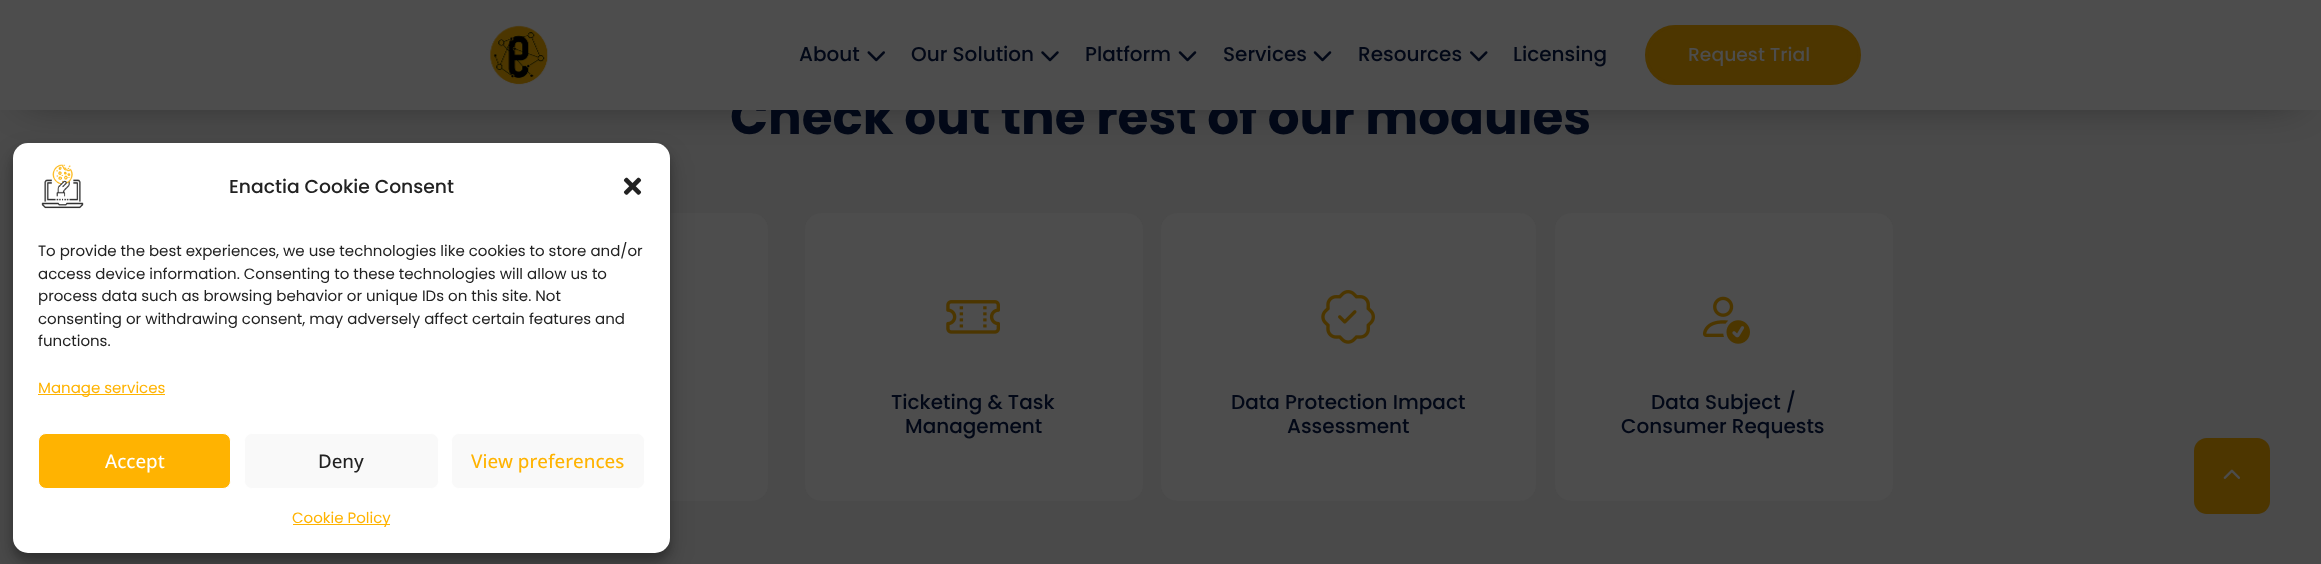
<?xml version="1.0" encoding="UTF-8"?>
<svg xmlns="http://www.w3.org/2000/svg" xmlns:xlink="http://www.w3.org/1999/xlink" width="2321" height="564">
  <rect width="100%" height="100%" fill="#4a4a4a" />
  <rect x="26" y="40" width="2269" height="58" fill="#000000" fill-opacity="0.5" filter="blur(20px)" />
  <rect x="430" y="213" width="338" height="288" rx="16" fill="#4d4d4d" />
  <rect x="13" y="150" width="657" height="410" rx="15" fill="#000000" fill-opacity="0.23" filter="blur(4px)" />
  <rect x="13" y="155" width="657" height="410" rx="15" fill="#000000" fill-opacity="0.19" filter="blur(12.5px)" />
  <rect x="13" y="143" width="657" height="410" rx="15" fill="#ffffff" />
  <image x="41" y="164" width="43" height="45" xlink:href="image6.png" />
  <image x="623" y="177" width="19" height="18" xlink:href="image7.png" />
  <rect x="38" y="394" width="127" height="1" fill="#ffb301" />
  <rect x="38.5" y="433.5" width="192" height="55" rx="7.5" fill="#ffb301" stroke="#ffffff" />
  <rect x="244.5" y="433.5" width="194" height="55" rx="7.5" fill="#f9f9f9" stroke="#ffffff" />
  <rect x="451.5" y="433.5" width="193" height="55" rx="7.5" fill="#f9f9f9" stroke="#ffffff" />
  <rect x="293" y="524" width="97" height="1" fill="#ffb301" />
  <rect x="805" y="213" width="338" height="288" rx="16" fill="#4d4d4d" />
  <image x="946" y="300" width="54" height="34" xlink:href="image8.png" />
  <rect x="1161" y="213" width="375" height="288" rx="16" fill="#4d4d4d" />
  <image x="1321" y="290" width="54" height="54" xlink:href="image9.png" />
  <rect x="1555" y="213" width="338" height="288" rx="16" fill="#4d4d4d" />
  <image x="1703" y="296" width="47" height="48" xlink:href="image10.png" />
  <rect x="2194" y="438" width="76" height="76" rx="13" fill="#4d3600" />
  <image x="2223" y="469" width="18" height="10" xlink:href="image11.png" />
  <text x="229" y="193" style="font-family: Poppins; font-size: 18.75px; font-weight: 500; fill: #222222">Enactia Cookie Consent</text>
  <text x="38" y="256" style="font-family: Poppins; font-size: 15px; fill: #222222">To provide the best experiences, we use technologies like cookies to store and/or</text>
  <text x="38" y="279" style="font-family: Poppins; font-size: 15px; fill: #222222">access device information. Consenting to these technologies will allow us to</text>
  <text x="38" y="301" style="font-family: Poppins; font-size: 15px; fill: #222222">process data such as browsing behavior or unique IDs on this site. Not</text>
  <text x="38" y="324" style="font-family: Poppins; font-size: 15px; fill: #222222">consenting or withdrawing consent, may adversely affect certain features and</text>
  <text x="38" y="346" style="font-family: Poppins; font-size: 15px; fill: #222222">functions.</text>
  <text x="38" y="393" style="font-family: Poppins; font-size: 15px; fill: #ffb301">Manage services</text>
  <text x="105" y="468" style="font-family: Open Sans; font-size: 18.75px; font-weight: 500; fill: #ffffff">Accept</text>
  <text x="318" y="468" style="font-family: Open Sans; font-size: 18.75px; font-weight: 500; fill: #222222">Deny</text>
  <text x="471" y="468" style="font-family: Open Sans; font-size: 18.75px; font-weight: 500; fill: #ffb301">View preferences</text>
  <text x="292" y="523" style="font-family: Poppins; font-size: 15px; fill: #ffb301">Cookie Policy</text>
  <text x="730" y="134" style="font-family: Poppins; font-size: 50px; font-weight: bold; fill: #020817">Check out the rest of our modules</text>
  <rect width="2321" height="110" fill="#4d4d4d" />
  <rect x="1646.5" y="26.5" width="213" height="57" rx="28.5" fill="#4d3600" stroke="#4d3600" stroke-width="3" />
  <text x="1688" y="61" style="font-family: Poppins; font-size: 18.75px; font-weight: 500; fill: #4d4d4d">Request Trial</text>
  <text x="1513" y="61" style="font-family: Poppins; font-size: 20px; font-weight: 500; fill: #020817">Licensing</text>
  <image x="1470" y="51" width="18" height="11" xlink:href="image5.png" />
  <text x="1358" y="61" style="font-family: Poppins; font-size: 20px; font-weight: 500; fill: #020817">Resources</text>
  <image x="1313" y="51" width="19" height="11" xlink:href="image4.png" />
  <text x="1223" y="61" style="font-family: Poppins; font-size: 20px; font-weight: 500; fill: #020817">Services</text>
  <image x="1178" y="51" width="19" height="11" xlink:href="image4.png" />
  <text x="1085" y="61" style="font-family: Poppins; font-size: 20px; font-weight: 500; fill: #020817">Platform</text>
  <image x="1041" y="51" width="18" height="11" xlink:href="image3.png" />
  <text x="911" y="61" style="font-family: Poppins; font-size: 20px; font-weight: 500; fill: #020817">Our Solution</text>
  <image x="867" y="51" width="18" height="11" xlink:href="image2.png" />
  <text x="799" y="61" style="font-family: Poppins; font-size: 20px; font-weight: 500; fill: #020817">About</text>
  <image x="490" y="25" width="58" height="60" xlink:href="image1.png" />
  <text x="891" y="409" style="font-family: Poppins; font-size: 20px; font-weight: 500; fill: #020817">Ticketing &amp; Task</text>
  <text x="905" y="433" style="font-family: Poppins; font-size: 20px; font-weight: 500; fill: #020817">Management</text>
  <text x="1231" y="409" style="font-family: Poppins; font-size: 20px; font-weight: 500; fill: #020817">Data Protection Impact</text>
  <text x="1287" y="433" style="font-family: Poppins; font-size: 20px; font-weight: 500; fill: #020817">Assessment</text>
  <text x="1651" y="409" style="font-family: Poppins; font-size: 20px; font-weight: 500; fill: #020817">Data Subject /</text>
  <text x="1621" y="433" style="font-family: Poppins; font-size: 20px; font-weight: 500; fill: #020817">Consumer Requests</text>
</svg>
